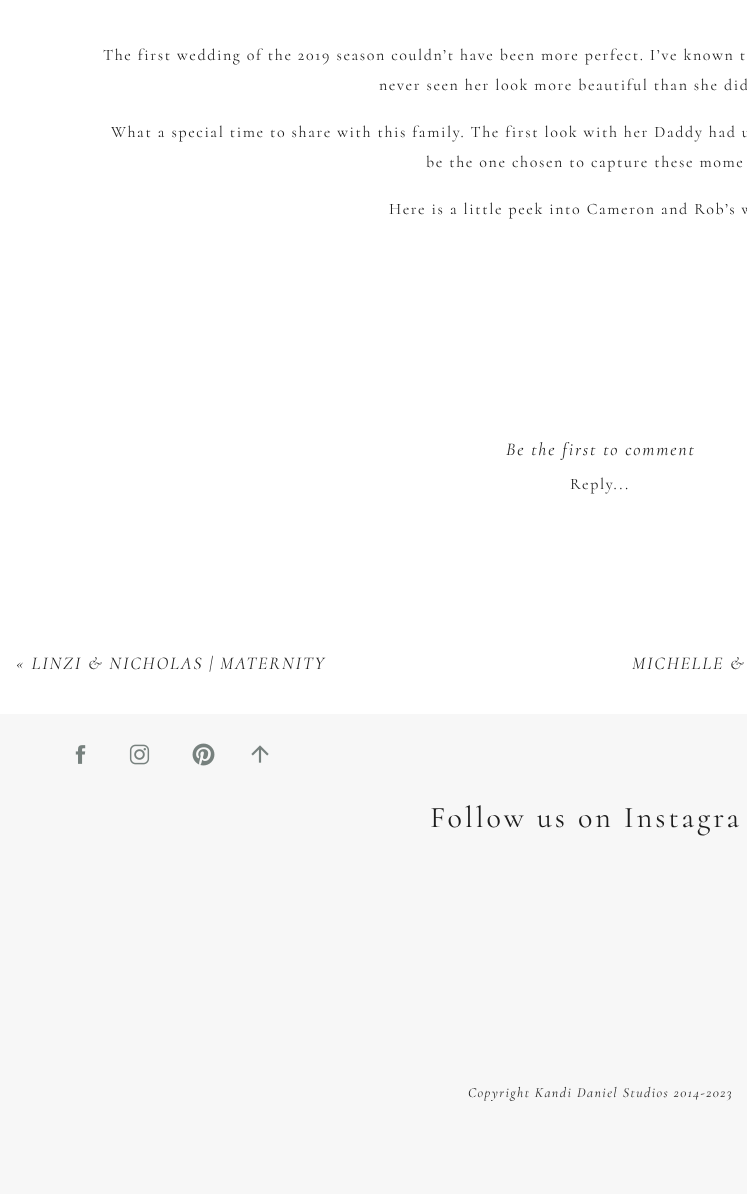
<?xml version="1.0" encoding="UTF-8"?>
<svg xmlns="http://www.w3.org/2000/svg" xmlns:xlink="http://www.w3.org/1999/xlink" width="747" height="1194">
  <rect width="100%" height="100%" fill="#ffffff" />
  <rect y="714" width="747" height="480" fill="#f7f7f7" />
  <image x="75" y="745" width="11" height="19" xlink:href="image1.png" />
  <image x="129" y="744" width="21" height="21" xlink:href="image2.png" />
  <image x="192" y="743" width="23" height="23" xlink:href="image3.png" />
  <image x="251" y="745" width="18" height="18" xlink:href="image4.png" />
  <text x="103" y="60" style="font-family: Cormorant; font-size: 16px; font-weight: 300; letter-spacing: 1.6px; fill: #1c1c1c">The first wedding of the 2019 season couldn’t have been more perfect. I’ve known t</text>
  <text x="379" y="90" style="font-family: Cormorant; font-size: 16px; font-weight: 300; letter-spacing: 1.6px; fill: #1c1c1c">never seen her look more beautiful than she did</text>
  <text x="111" y="137" style="font-family: Cormorant; font-size: 16px; font-weight: 300; letter-spacing: 1.6px; fill: #1c1c1c">What a special time to share with this family. The first look with her Daddy had u</text>
  <text x="426" y="167" style="font-family: Cormorant; font-size: 16px; font-weight: 300; letter-spacing: 1.6px; fill: #1c1c1c">be the one chosen to capture these mome</text>
  <text x="389" y="214" style="font-family: Cormorant; font-size: 16px; font-weight: 300; letter-spacing: 1.6px; fill: #1c1c1c">Here is a little peek into Cameron and Rob’s w</text>
  <text x="506" y="455" style="font-family: Cormorant; font-size: 18px; font-weight: 300; font-style: italic; letter-spacing: 1.8px; fill: #1c1c1c">Be the first to comment</text>
  <text x="570" y="489" style="font-family: Cormorant; font-size: 16px; font-weight: 300; letter-spacing: 1.6px; fill: #1c1c1c">Reply...</text>
  <text x="16" y="669" style="font-family: Cormorant; font-size: 18px; font-weight: 300; font-style: italic; letter-spacing: 1.8px; fill: #1c1c1c">« LINZI &amp; NICHOLAS | MATERNITY</text>
  <text x="632" y="669" style="font-family: Cormorant; font-size: 18px; font-weight: 300; font-style: italic; letter-spacing: 1.8px; fill: #1c1c1c">MICHELLE &amp;</text>
  <text x="430" y="827" style="font-family: Cormorant; font-size: 30px; font-weight: 300; letter-spacing: 3px; fill: #1c1c1c">Follow us on Instagra</text>
  <text x="468" y="1097" style="font-family: Cormorant; font-size: 14px; font-weight: 300; font-style: italic; letter-spacing: 1.4px; fill: #1c1c1c">Copyright Kandi Daniel Studios 2014-2023</text>
</svg>
